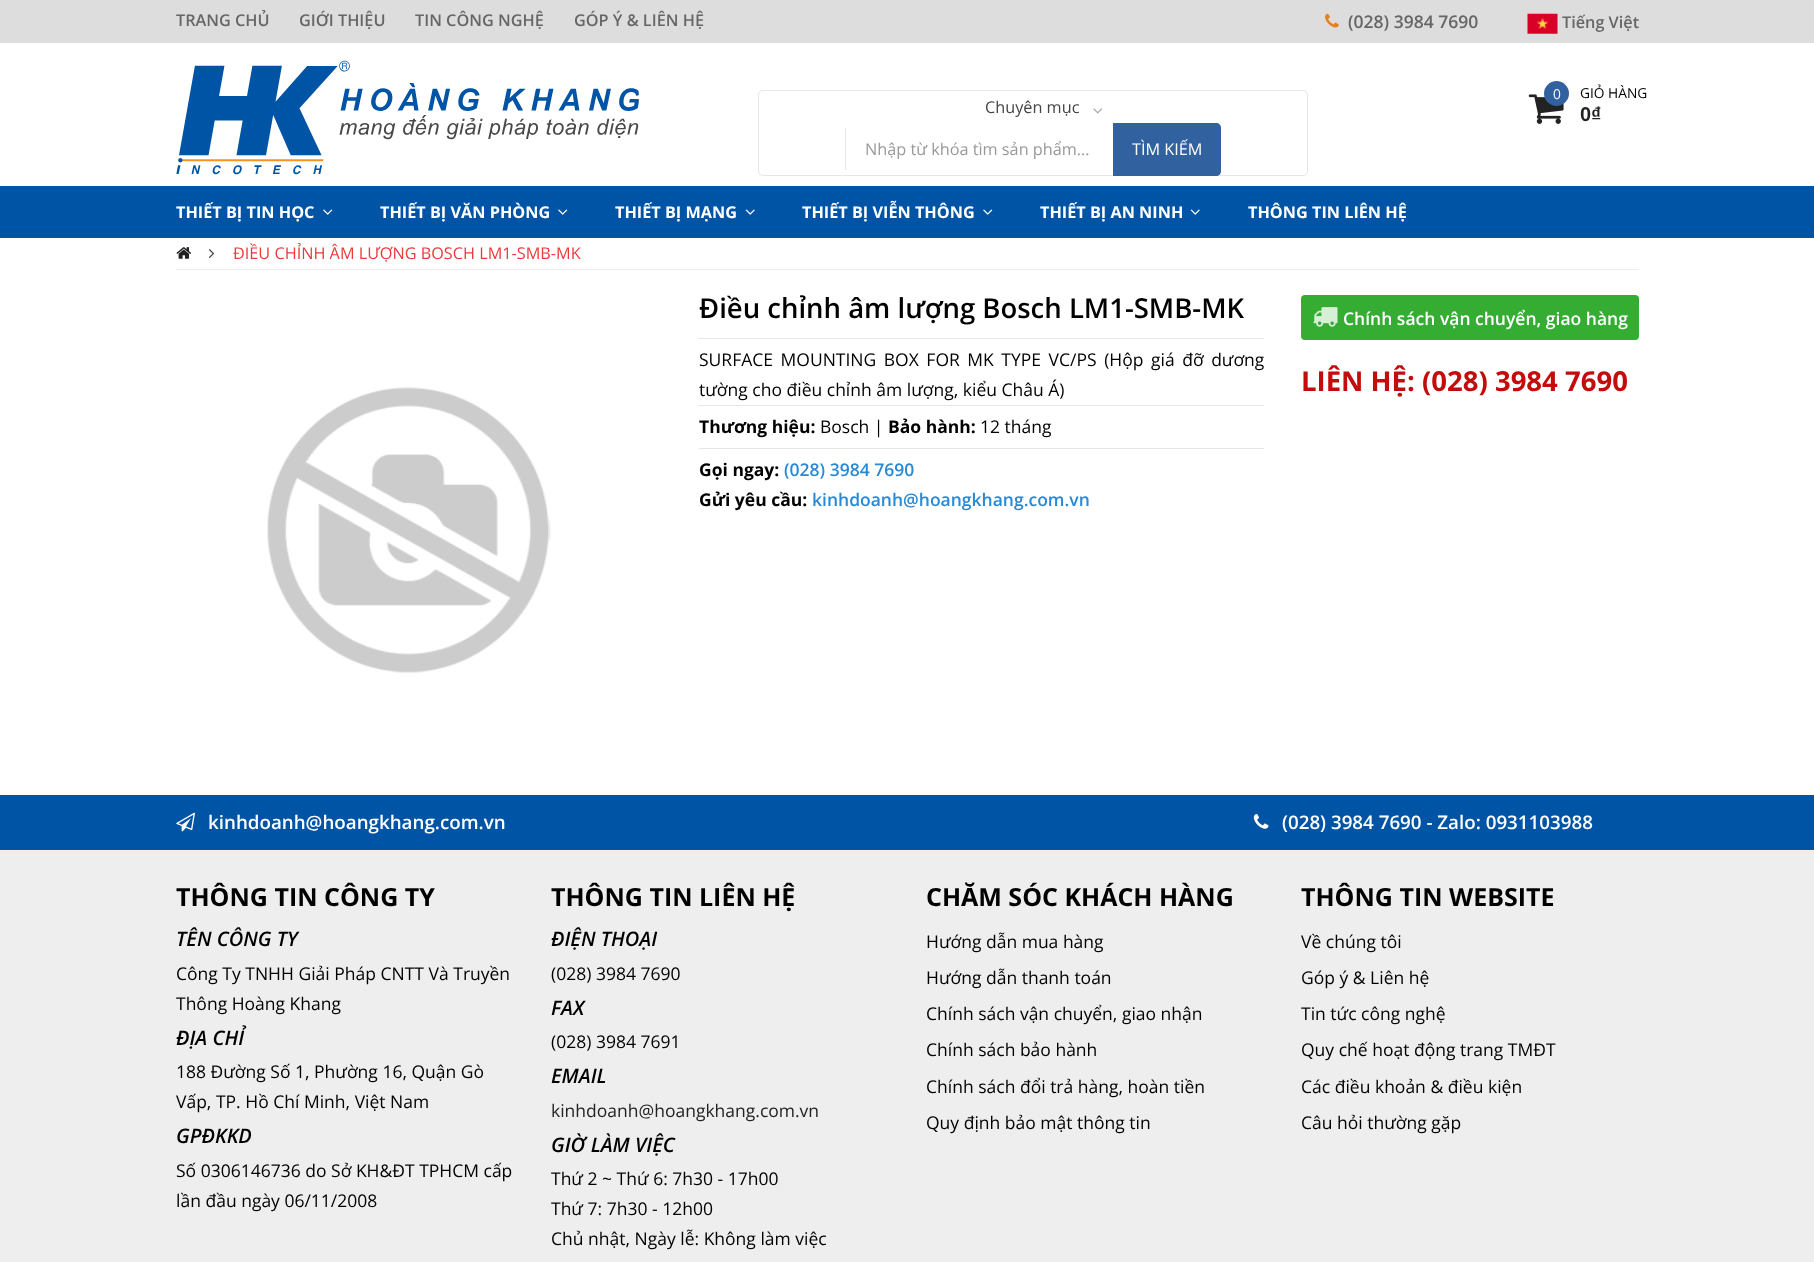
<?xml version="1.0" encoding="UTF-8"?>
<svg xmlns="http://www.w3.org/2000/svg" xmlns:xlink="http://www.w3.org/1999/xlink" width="1814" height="1262">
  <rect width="100%" height="100%" fill="#ffffff" />
  <rect width="1814" height="43" fill="#dddddd" />
  <image x="1325" y="13" width="14" height="15" xlink:href="image1.png" />
  <image x="1527" y="13" width="31" height="21" xlink:href="image2.png" />
  <image x="176" y="60" width="463" height="115" xlink:href="image3.png" />
  <rect x="758.5" y="90.5" width="549" height="85" rx="4.5" fill="none" stroke="#e6e6e6" />
  <image x="1093" y="108" width="10" height="6" xlink:href="image4.png" />
  <rect x="845" y="128" width="1" height="42" fill="#e6e6e6" />
  <path d="M 1113 123 h 103 c 3 0 5 2 5 5 v 43 c 0 3 -2 5 -5 5 h -103 z" fill="#31629f" />
  <image x="1528" y="94" width="36" height="30" xlink:href="image5.png" />
  <circle cx="1556.5" cy="93.5" r="12.5" fill="#31629f" />
  <rect y="186" width="1814" height="52" fill="#0054a5" />
  <image x="323" y="209" width="10" height="6" xlink:href="image6.png" />
  <image x="558" y="209" width="10" height="6" xlink:href="image6.png" />
  <image x="745" y="209" width="10" height="6" xlink:href="image7.png" />
  <image x="983" y="209" width="10" height="6" xlink:href="image6.png" />
  <image x="1190" y="209" width="10" height="6" xlink:href="image7.png" />
  <rect x="176" y="269" width="1463" height="1" fill="#eeeeee" />
  <image x="176" y="247" width="15" height="12" xlink:href="image8.png" />
  <image x="208" y="249" width="7" height="9" xlink:href="image9.png" />
  <rect x="699" y="338" width="565" height="1" fill="#e6e6e6" />
  <rect x="699" y="405" width="565" height="1" fill="#e6e6e6" />
  <rect x="699" y="448" width="565" height="1" fill="#e6e6e6" />
  <rect x="1301" y="295" width="338" height="45" rx="4" fill="#35ad33" />
  <image x="1313" y="307" width="25" height="20" xlink:href="image10.png" />
  <image x="267" y="387" width="284" height="286" xlink:href="image11.png" />
  <rect y="795" width="1814" height="55" fill="#0054a5" />
  <image x="176" y="812" width="19" height="20" xlink:href="image12.png" />
  <image x="1253" y="814" width="16" height="15" xlink:href="image13.png" />
  <rect y="850" width="1814" height="412" fill="#eeeeee" />
  <text x="176" y="26" style="font-family: Open Sans; font-size: 16.25px; font-weight: 600; fill: #666666">TRANG CHỦ</text>
  <text x="299" y="26" style="font-family: Open Sans; font-size: 16.25px; font-weight: 600; fill: #666666">GIỚI THIỆU</text>
  <text x="415" y="26" style="font-family: Open Sans; font-size: 16.25px; font-weight: 600; fill: #666666">TIN CÔNG NGHỆ</text>
  <text x="574" y="26" style="font-family: Open Sans; font-size: 16.25px; font-weight: 600; fill: #666666">GÓP Ý &amp; LIÊN HỆ</text>
  <text x="1348" y="28" style="font-family: Open Sans; font-size: 17.5px; font-weight: 600; fill: #666666">(028) 3984 7690</text>
  <text x="1562" y="28" style="font-family: Open Sans; font-size: 16.25px; font-weight: 600; fill: #666666">Tiếng Việt</text>
  <text x="985" y="113" style="font-family: Open Sans; font-size: 16.25px; fill: #444444">Chuyên mục</text>
  <text x="865" y="155" style="font-family: Open Sans; font-size: 16.25px; fill: #999999">Nhập từ khóa tìm sản phẩm...</text>
  <text x="1132" y="155" style="font-family: Open Sans; font-size: 16.25px; fill: #ffffff">TÌM KIẾM</text>
  <text x="1553" y="99" style="font-family: Open Sans; font-size: 13.75px; fill: #ffffff">0</text>
  <text x="1580" y="98" style="font-family: Open Sans; font-size: 13.75px; fill: #000000">GIỎ HÀNG</text>
  <text x="1580" y="121" style="font-family: Liberation Sans; font-size: 20px; font-weight: bold; fill: #222222">0₫</text>
  <text x="176" y="218" style="font-family: Open Sans; font-size: 16.25px; font-weight: bold; fill: #ffffff">THIẾT BỊ TIN HỌC</text>
  <text x="380" y="218" style="font-family: Open Sans; font-size: 16.25px; font-weight: bold; fill: #ffffff">THIẾT BỊ VĂN PHÒNG</text>
  <text x="615" y="218" style="font-family: Open Sans; font-size: 16.25px; font-weight: bold; fill: #ffffff">THIẾT BỊ MẠNG</text>
  <text x="802" y="218" style="font-family: Open Sans; font-size: 16.25px; font-weight: bold; fill: #ffffff">THIẾT BỊ VIỄN THÔNG</text>
  <text x="1040" y="218" style="font-family: Open Sans; font-size: 16.25px; font-weight: bold; fill: #ffffff">THIẾT BỊ AN NINH</text>
  <text x="1248" y="218" style="font-family: Open Sans; font-size: 16.25px; font-weight: bold; fill: #ffffff">THÔNG TIN LIÊN HỆ</text>
  <text x="233" y="259" style="font-family: Open Sans; font-size: 16.25px; fill: #ea3a3c">ĐIỀU CHỈNH ÂM LƯỢNG BOSCH LM1-SMB-MK</text>
  <text x="699" y="318" style="font-family: Open Sans; font-size: 27.5px; font-weight: 600; fill: #000000">Điều chỉnh âm lượng Bosch LM1-SMB-MK</text>
  <text x="699" y="366" word-spacing="3" style="font-family: Open Sans; font-size: 17.5px; fill: #000000">SURFACE MOUNTING BOX FOR MK TYPE VC/PS (Hộp giá đỡ dương</text>
  <text x="699" y="396" style="font-family: Open Sans; font-size: 17.5px; fill: #000000">tường cho điều chỉnh âm lượng, kiểu Châu Á)</text>
  <text x="699" y="433" style="font-family: Open Sans; font-size: 17.5px; font-weight: bold; fill: #000000">Thương hiệu:</text>
  <text x="820" y="433" style="font-family: Open Sans; font-size: 17.5px; fill: #000000">Bosch |</text>
  <text x="888" y="433" style="font-family: Open Sans; font-size: 17.5px; font-weight: bold; fill: #000000">Bảo hành:</text>
  <text x="980" y="433" style="font-family: Open Sans; font-size: 17.5px; fill: #000000">12 tháng</text>
  <text x="699" y="476" style="font-family: Open Sans; font-size: 17.5px; font-weight: bold; fill: #000000">Gọi ngay:</text>
  <text x="784" y="476" style="font-family: Open Sans; font-size: 17.5px; font-weight: 600; fill: #288ad6">(028) 3984 7690</text>
  <text x="699" y="506" style="font-family: Open Sans; font-size: 17.5px; font-weight: bold; fill: #000000">Gửi yêu cầu:</text>
  <text x="812" y="506" style="font-family: Open Sans; font-size: 17.5px; font-weight: 600; fill: #288ad6">kinhdoanh@hoangkhang.com.vn</text>
  <text x="1343" y="325" style="font-family: Open Sans; font-size: 17.5px; font-weight: 600; fill: #ffffff">Chính sách vận chuyển, giao hàng</text>
  <text x="1301" y="391" style="font-family: Open Sans; font-size: 27.5px; font-weight: bold; fill: #c30c0c">LIÊN HỆ: (028) 3984 7690</text>
  <text x="208" y="829" style="font-family: Open Sans; font-size: 18.75px; font-weight: 600; fill: #ffffff">kinhdoanh@hoangkhang.com.vn</text>
  <text x="1282" y="829" style="font-family: Open Sans; font-size: 18.75px; font-weight: 600; fill: #ffffff">(028) 3984 7690 - Zalo: 0931103988</text>
  <text x="176" y="906" style="font-family: Open Sans; font-size: 25px; font-weight: bold; fill: #000000">THÔNG TIN CÔNG TY</text>
  <text x="176" y="946" style="font-family: Open Sans; font-size: 20px; font-weight: 600; font-style: italic; fill: #000000">TÊN CÔNG TY</text>
  <text x="176" y="980" style="font-family: Open Sans; font-size: 17.5px; fill: #000000">Công Ty TNHH Giải Pháp CNTT Và Truyền</text>
  <text x="176" y="1010" style="font-family: Open Sans; font-size: 17.5px; fill: #000000">Thông Hoàng Khang</text>
  <text x="176" y="1045" style="font-family: Open Sans; font-size: 20px; font-weight: 600; font-style: italic; fill: #000000">ĐỊA CHỈ</text>
  <text x="176" y="1078" style="font-family: Open Sans; font-size: 17.5px; fill: #000000">188 Đường Số 1, Phường 16, Quận Gò</text>
  <text x="176" y="1108" style="font-family: Open Sans; font-size: 17.5px; fill: #000000">Vấp, TP. Hồ Chí Minh, Việt Nam</text>
  <text x="176" y="1143" style="font-family: Open Sans; font-size: 20px; font-weight: 600; font-style: italic; fill: #000000">GPĐKKD</text>
  <text x="176" y="1177" style="font-family: Open Sans; font-size: 17.5px; fill: #000000">Số 0306146736 do Sở KH&amp;ĐT TPHCM cấp</text>
  <text x="176" y="1207" style="font-family: Open Sans; font-size: 17.5px; fill: #000000">lần đầu ngày 06/11/2008</text>
  <text x="551" y="906" style="font-family: Open Sans; font-size: 25px; font-weight: bold; fill: #000000">THÔNG TIN LIÊN HỆ</text>
  <text x="551" y="946" style="font-family: Open Sans; font-size: 20px; font-weight: 600; font-style: italic; fill: #000000">ĐIỆN THOẠI</text>
  <text x="551" y="980" style="font-family: Open Sans; font-size: 17.5px; fill: #000000">(028) 3984 7690</text>
  <text x="551" y="1015" style="font-family: Open Sans; font-size: 20px; font-weight: 600; font-style: italic; fill: #000000">FAX</text>
  <text x="551" y="1048" style="font-family: Open Sans; font-size: 17.5px; fill: #000000">(028) 3984 7691</text>
  <text x="551" y="1083" style="font-family: Open Sans; font-size: 20px; font-weight: 600; font-style: italic; fill: #000000">EMAIL</text>
  <text x="551" y="1117" style="font-family: Open Sans; font-size: 17.5px; fill: #222222">kinhdoanh@hoangkhang.com.vn</text>
  <text x="551" y="1152" style="font-family: Open Sans; font-size: 20px; font-weight: 600; font-style: italic; fill: #000000">GIỜ LÀM VIỆC</text>
  <text x="551" y="1185" style="font-family: Open Sans; font-size: 17.5px; fill: #000000">Thứ 2 ~ Thứ 6: 7h30 - 17h00</text>
  <text x="551" y="1215" style="font-family: Open Sans; font-size: 17.5px; fill: #000000">Thứ 7: 7h30 - 12h00</text>
  <text x="551" y="1245" style="font-family: Open Sans; font-size: 17.5px; fill: #000000">Chủ nhật, Ngày lễ: Không làm việc</text>
  <text x="926" y="906" style="font-family: Open Sans; font-size: 25px; font-weight: bold; fill: #000000">CHĂM SÓC KHÁCH HÀNG</text>
  <text x="926" y="948" style="font-family: Open Sans; font-size: 17.5px; fill: #000000">Hướng dẫn mua hàng</text>
  <text x="926" y="984" style="font-family: Open Sans; font-size: 17.5px; fill: #000000">Hướng dẫn thanh toán</text>
  <text x="926" y="1020" style="font-family: Open Sans; font-size: 17.5px; fill: #000000">Chính sách vận chuyển, giao nhận</text>
  <text x="926" y="1056" style="font-family: Open Sans; font-size: 17.5px; fill: #000000">Chính sách bảo hành</text>
  <text x="926" y="1093" style="font-family: Open Sans; font-size: 17.5px; fill: #000000">Chính sách đổi trả hàng, hoàn tiền</text>
  <text x="926" y="1129" style="font-family: Open Sans; font-size: 17.5px; fill: #000000">Quy định bảo mật thông tin</text>
  <text x="1301" y="906" style="font-family: Open Sans; font-size: 25px; font-weight: bold; fill: #000000">THÔNG TIN WEBSITE</text>
  <text x="1301" y="948" style="font-family: Open Sans; font-size: 17.5px; fill: #000000">Về chúng tôi</text>
  <text x="1301" y="984" style="font-family: Open Sans; font-size: 17.5px; fill: #000000">Góp ý &amp; Liên hệ</text>
  <text x="1301" y="1020" style="font-family: Open Sans; font-size: 17.5px; fill: #000000">Tin tức công nghệ</text>
  <text x="1301" y="1056" style="font-family: Open Sans; font-size: 17.5px; fill: #000000">Quy chế hoạt động trang TMĐT</text>
  <text x="1301" y="1093" style="font-family: Open Sans; font-size: 17.5px; fill: #000000">Các điều khoản &amp; điều kiện</text>
  <text x="1301" y="1129" style="font-family: Open Sans; font-size: 17.5px; fill: #000000">Câu hỏi thường gặp</text>
</svg>
